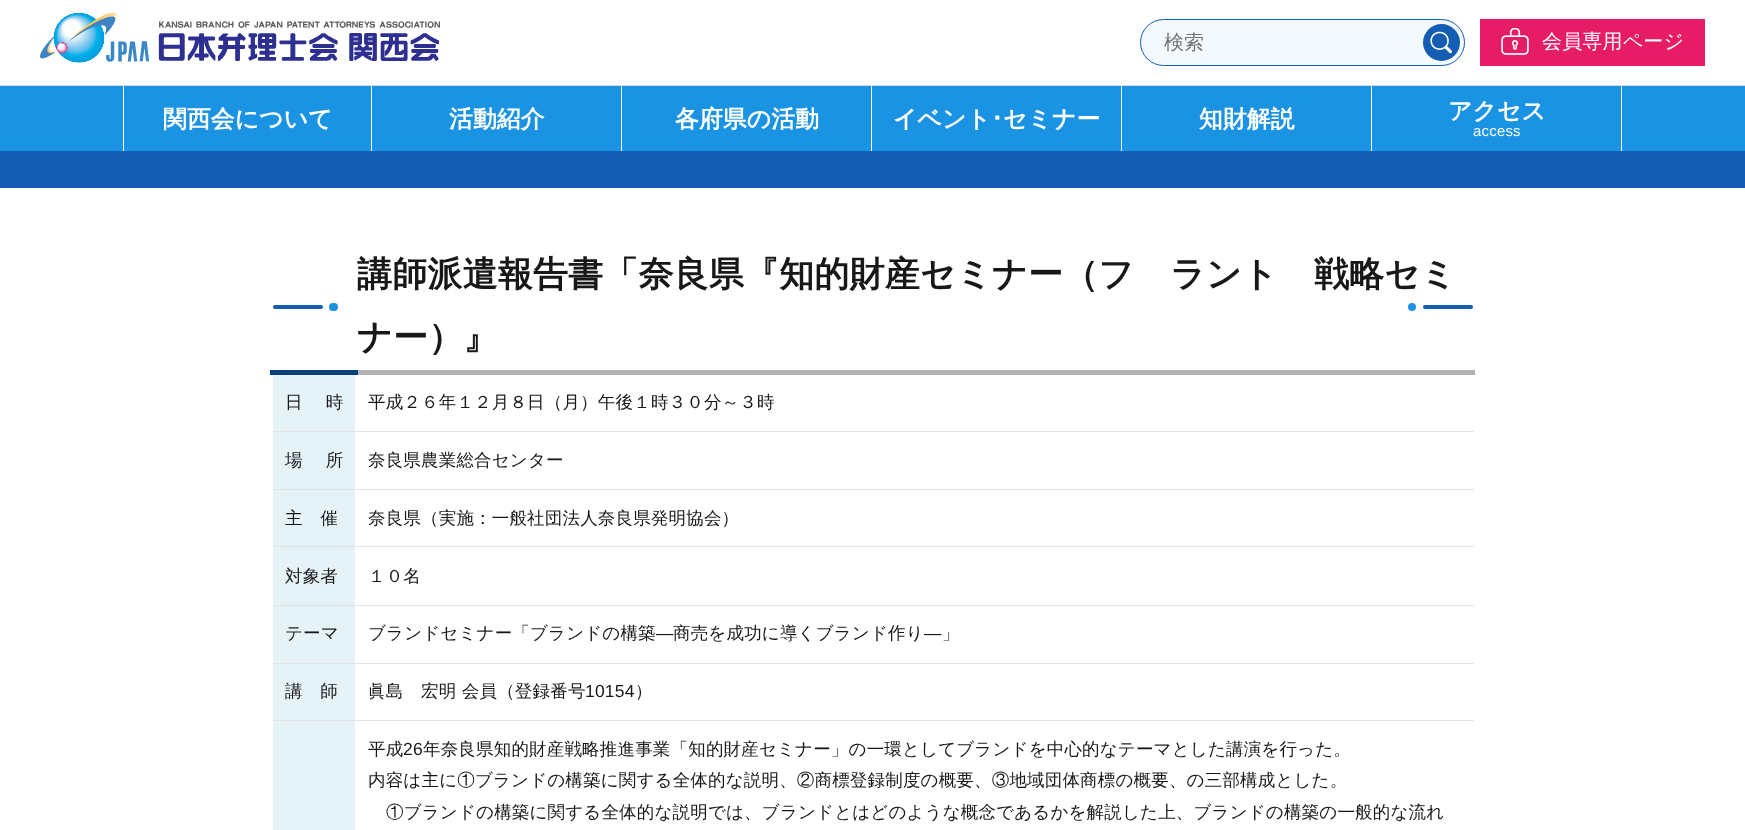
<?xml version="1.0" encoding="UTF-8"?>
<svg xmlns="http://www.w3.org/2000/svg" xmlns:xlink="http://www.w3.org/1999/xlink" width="1745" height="830">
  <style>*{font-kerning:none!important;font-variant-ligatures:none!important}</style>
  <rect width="100%" height="100%" fill="#ffffff" />
  <image x="40" y="13" width="400" height="50" xlink:href="image1.png" />
  <rect x="1140.5" y="19.5" width="324" height="46" rx="23" fill="#f3f9fc" stroke="#135db2" />
  <circle cx="1441.5" cy="42.5" r="18.5" fill="#135db2" />
  <image x="1430" y="31" width="22" height="23" xlink:href="image2.png" />
  <rect x="1480" y="19" width="225" height="47" fill="#e61c66" />
  <image x="1501" y="28" width="28" height="27" xlink:href="image3.png" />
  <rect y="86" width="1745" height="65" fill="#1b93e3" />
  <rect y="85" width="1745" height="1" fill="#d8dce0" />
  <rect x="371" y="86" width="1" height="65" fill="#f3f9fc" />
  <rect x="123" y="86" width="1" height="65" fill="#f3f9fc" />
  <rect x="621" y="86" width="1" height="65" fill="#f3f9fc" />
  <rect x="871" y="86" width="1" height="65" fill="#f3f9fc" />
  <rect x="1121" y="86" width="1" height="65" fill="#f3f9fc" />
  <rect x="1371" y="86" width="1" height="65" fill="#f3f9fc" />
  <rect x="1621" y="86" width="1" height="65" fill="#f3f9fc" />
  <rect y="151" width="1745" height="37" fill="#135db2" />
  <rect x="273" y="305" width="50" height="4" rx="2" fill="#135db2" />
  <rect x="329" y="303" width="9" height="8" rx="4" fill="#1b93e3" />
  <circle cx="1412" cy="307" r="4" fill="#1b93e3" />
  <rect x="1423" y="305" width="50" height="4" rx="2" fill="#135db2" />
  <rect x="273" y="375" width="82" height="56" fill="#e5f2f8" />
  <rect x="353" y="370" width="1122" height="5" fill="#b3b3b3" />
  <rect x="270" y="370" width="88" height="5" fill="#0b4179" />
  <rect x="273" y="431" width="1201" height="1" fill="#e3e3e3" />
  <rect x="273" y="432" width="82" height="57" fill="#e5f2f8" />
  <rect x="273" y="489" width="1201" height="1" fill="#e3e3e3" />
  <rect x="273" y="490" width="82" height="115" fill="#e5f2f8" />
  <rect x="273" y="546" width="1201" height="1" fill="#e3e3e3" />
  <rect x="273" y="605" width="1201" height="1" fill="#e3e3e3" />
  <rect x="273" y="606" width="82" height="57" fill="#e5f2f8" />
  <rect x="273" y="663" width="1201" height="1" fill="#e3e3e3" />
  <rect x="273" y="664" width="82" height="56" fill="#e5f2f8" />
  <rect x="273" y="720" width="1201" height="1" fill="#e3e3e3" />
  <rect x="273" y="721" width="82" height="109" fill="#e5f2f8" />
  <text x="1164" y="49" style="font-family: WenQuanYi Zen Hei; font-size: 20px; font-weight: 500; fill: #757575">検索</text>
  <text x="1542" y="48" style="font-family: WenQuanYi Zen Hei; font-size: 20px; font-weight: 500; letter-spacing: 0.18px; fill: #ffffff">会員専用ページ</text>
  <text x="163" y="127" style="font-family: WenQuanYi Zen Hei; font-size: 23.75px; font-weight: bold; letter-spacing: 0.18px; fill: #ffffff">関西会について</text>
  <text x="449" y="127" style="font-family: WenQuanYi Zen Hei; font-size: 23.75px; font-weight: bold; letter-spacing: 0.18px; fill: #ffffff">活動紹介</text>
  <text x="675" y="127" style="font-family: WenQuanYi Zen Hei; font-size: 23.75px; font-weight: bold; letter-spacing: 0.18px; fill: #ffffff">各府県の活動</text>
  <text x="893" y="127" style="font-family: WenQuanYi Zen Hei; font-size: 23.75px; font-weight: bold; letter-spacing: 0.18px; fill: #ffffff">イベント</text>
  <text x="991" y="127" style="font-family: IPAPGothic; font-size: 23.75px; font-weight: bold; letter-spacing: 0.18px; fill: #ffffff">･</text>
  <text x="1003" y="127" style="font-family: WenQuanYi Zen Hei; font-size: 23.75px; font-weight: bold; letter-spacing: 0.18px; fill: #ffffff">セミナー</text>
  <text x="1199" y="127" style="font-family: WenQuanYi Zen Hei; font-size: 23.75px; font-weight: bold; letter-spacing: 0.18px; fill: #ffffff">知財解説</text>
  <text x="1448" y="119" style="font-family: WenQuanYi Zen Hei; font-size: 23.75px; font-weight: bold; letter-spacing: 0.18px; fill: #ffffff">アクセス</text>
  <text x="1473" y="136" style="font-family: Liberation Sans; font-size: 15px; letter-spacing: 0.18px; fill: #ffffff">access</text>
  <text x="357" y="286" style="font-family: WenQuanYi Zen Hei; font-size: 35px; font-weight: bold; letter-spacing: 0.18px; fill: #181818">講師派遣報告書「奈良県『知的財産セミナー（ブランド戦略セミ</text>
  <text x="357" y="349" style="font-family: WenQuanYi Zen Hei; font-size: 35px; font-weight: bold; letter-spacing: 0.18px; fill: #181818">ナー）』</text>
  <text x="285" y="408" style="font-family: WenQuanYi Zen Hei; font-size: 17.5px; font-weight: 500; letter-spacing: 0.18px; fill: #181818">日　 時</text>
  <text x="368" y="408" style="font-family: WenQuanYi Zen Hei; font-size: 17.5px; font-weight: 500; letter-spacing: 0.18px; fill: #181818">平成２６年１２月８日（月）午後１時３０分～３時</text>
  <text x="285" y="466" style="font-family: WenQuanYi Zen Hei; font-size: 17.5px; font-weight: 500; letter-spacing: 0.18px; fill: #181818">場　 所</text>
  <text x="368" y="466" style="font-family: WenQuanYi Zen Hei; font-size: 17.5px; font-weight: 500; letter-spacing: 0.18px; fill: #181818">奈良県農業総合センター</text>
  <text x="285" y="524" style="font-family: WenQuanYi Zen Hei; font-size: 17.5px; font-weight: 500; letter-spacing: 0.18px; fill: #181818">主　催</text>
  <text x="368" y="524" style="font-family: WenQuanYi Zen Hei; font-size: 17.5px; font-weight: 500; letter-spacing: 0.18px; fill: #181818">奈良県（実施：一般社団法人奈良県発明協会）</text>
  <text x="285" y="582" style="font-family: WenQuanYi Zen Hei; font-size: 17.5px; font-weight: 500; letter-spacing: 0.18px; fill: #181818">対象者</text>
  <text x="368" y="582" style="font-family: WenQuanYi Zen Hei; font-size: 17.5px; font-weight: 500; letter-spacing: 0.18px; fill: #181818">１０名</text>
  <text x="285" y="639" style="font-family: WenQuanYi Zen Hei; font-size: 17.5px; font-weight: 500; letter-spacing: 0.18px; fill: #181818">テーマ</text>
  <text x="368" y="639" style="font-family: WenQuanYi Zen Hei; font-size: 17.5px; font-weight: 500; letter-spacing: 0.18px; fill: #181818">ブランドセミナー「ブランドの構築</text>
  <text x="656" y="639" style="font-family: Liberation Sans; font-size: 17.5px; letter-spacing: 0.18px; fill: #181818">―</text>
  <text x="673" y="639" style="font-family: WenQuanYi Zen Hei; font-size: 17.5px; font-weight: 500; letter-spacing: 0.18px; fill: #181818">商売を成功に導くブランド作り</text>
  <text x="924" y="639" style="font-family: Liberation Sans; font-size: 17.5px; letter-spacing: 0.18px; fill: #181818">―</text>
  <text x="942" y="639" style="font-family: WenQuanYi Zen Hei; font-size: 17.5px; font-weight: 500; letter-spacing: 0.18px; fill: #181818">」</text>
  <text x="285" y="697" style="font-family: WenQuanYi Zen Hei; font-size: 17.5px; font-weight: 500; letter-spacing: 0.18px; fill: #181818">講　師</text>
  <text x="368" y="697" style="font-family: WenQuanYi Zen Hei; font-size: 17.5px; font-weight: 500; letter-spacing: 0.18px; fill: #181818">眞島　宏明 会員（登録番号</text>
  <text x="585" y="697" style="font-family: Liberation Sans; font-size: 17.5px; letter-spacing: 0.18px; fill: #181818">10154</text>
  <text x="635" y="697" style="font-family: WenQuanYi Zen Hei; font-size: 17.5px; font-weight: 500; letter-spacing: 0.18px; fill: #181818">）</text>
  <text x="368" y="755" style="font-family: WenQuanYi Zen Hei; font-size: 17.5px; font-weight: 500; letter-spacing: 0.18px; fill: #181818">平成</text>
  <text x="403" y="755" style="font-family: Liberation Sans; font-size: 17.5px; letter-spacing: 0.18px; fill: #181818">26</text>
  <text x="423" y="755" style="font-family: WenQuanYi Zen Hei; font-size: 17.5px; font-weight: 500; letter-spacing: 0.18px; fill: #181818">年奈良県知的財産戦略推進事業「知的財産セミナー」の一環としてブランドを中心的なテーマとした講演を行った。</text>
  <text x="368" y="786" style="font-family: WenQuanYi Zen Hei; font-size: 17.5px; font-weight: 500; letter-spacing: 0.18px; fill: #181818">内容は主に①ブランドの構築に関する全体的な説明、②商標登録制度の概要、③地域団体商標の概要、の三部構成とした。</text>
  <text x="386" y="818" style="font-family: WenQuanYi Zen Hei; font-size: 17.5px; font-weight: 500; letter-spacing: 0.18px; fill: #181818">①ブランドの構築に関する全体的な説明では、ブランドとはどのような概念であるかを解説した上、ブランドの構築の一般的な流れ</text>
</svg>
